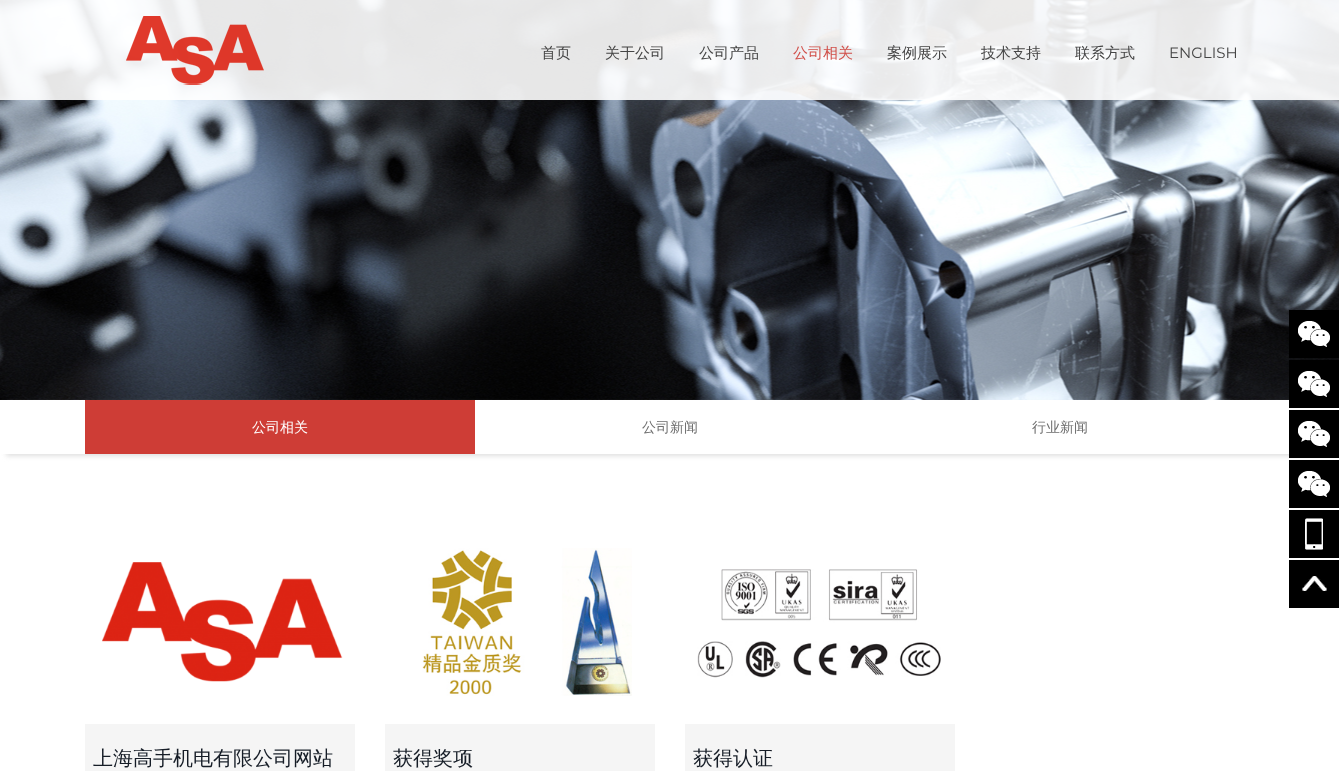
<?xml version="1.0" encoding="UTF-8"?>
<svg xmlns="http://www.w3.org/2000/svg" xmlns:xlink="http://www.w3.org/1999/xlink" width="1339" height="771">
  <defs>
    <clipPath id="clip1"><path d="M 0 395 h 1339 v 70 h -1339 z m 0 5 h 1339 v 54 h -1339 z" clip-rule="evenodd" /></clipPath>
  </defs>
  <rect width="100%" height="100%" fill="#ffffff" />
  <image x="0" y="0" width="1339" height="400" xlink:href="image1.png" />
  <rect width="1339" height="100" fill="#ffffff" fill-opacity="0.9" />
  <image x="126" y="16" width="138" height="69" xlink:href="image2.png" />
  <g clip-path="url(#clip1)">
    <rect x="6" y="404" width="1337" height="52" fill="#dfdfdf" filter="blur(2.5px)" />
  </g>
  <rect x="85" y="400" width="390" height="54" fill="#ce3d36" />
  <image x="1289" y="310" width="50" height="48" xlink:href="image3.png" />
  <image x="1289" y="360" width="50" height="48" xlink:href="image3.png" />
  <image x="1289" y="410" width="50" height="48" xlink:href="image3.png" />
  <image x="1289" y="460" width="50" height="48" xlink:href="image3.png" />
  <image x="1289" y="510" width="50" height="48" xlink:href="image4.png" />
  <image x="1289" y="560" width="50" height="48" xlink:href="image5.png" />
  <image x="102" y="562" width="241" height="120" xlink:href="image6.png" />
  <rect x="85" y="724" width="270" height="47" fill="#f5f5f5" />
  <image x="422" y="548" width="210" height="148" xlink:href="image7.png" />
  <rect x="385" y="724" width="270" height="47" fill="#f5f5f5" />
  <image x="697" y="569" width="244" height="109" xlink:href="image8.png" />
  <rect x="685" y="724" width="270" height="47" fill="#f5f5f5" />
  <text x="541" y="58" style="font-family: WenQuanYi Zen Hei; font-size: 15px; font-weight: 500; fill: #454545">首页</text>
  <text x="605" y="58" style="font-family: WenQuanYi Zen Hei; font-size: 15px; font-weight: 500; fill: #454545">关于公司</text>
  <text x="699" y="58" style="font-family: WenQuanYi Zen Hei; font-size: 15px; font-weight: 500; fill: #454545">公司产品</text>
  <text x="793" y="58" style="font-family: WenQuanYi Zen Hei; font-size: 15px; font-weight: 500; fill: #d14f49">公司相关</text>
  <text x="887" y="58" style="font-family: WenQuanYi Zen Hei; font-size: 15px; font-weight: 500; fill: #454545">案例展示</text>
  <text x="981" y="58" style="font-family: WenQuanYi Zen Hei; font-size: 15px; font-weight: 500; fill: #454545">技术支持</text>
  <text x="1075" y="58" style="font-family: WenQuanYi Zen Hei; font-size: 15px; font-weight: 500; fill: #454545">联系方式</text>
  <text x="1169" y="58" style="font-family: Montserrat; font-size: 15px; fill: #454545">ENGLISH</text>
  <text x="252" y="432" style="font-family: WenQuanYi Zen Hei; font-size: 14px; font-weight: 500; fill: #ffffff">公司相关</text>
  <text x="642" y="432" style="font-family: WenQuanYi Zen Hei; font-size: 14px; font-weight: 500; fill: #6e6e6e">公司新闻</text>
  <text x="1032" y="432" style="font-family: WenQuanYi Zen Hei; font-size: 14px; font-weight: 500; fill: #6e6e6e">行业新闻</text>
  <text x="93" y="765" style="font-family: WenQuanYi Zen Hei; font-size: 20px; font-weight: 500; fill: #161d27">上海高手机电有限公司网站</text>
  <text x="393" y="765" style="font-family: WenQuanYi Zen Hei; font-size: 20px; font-weight: 500; fill: #161d27">获得奖项</text>
  <text x="693" y="765" style="font-family: WenQuanYi Zen Hei; font-size: 20px; font-weight: 500; fill: #161d27">获得认证</text>
</svg>
